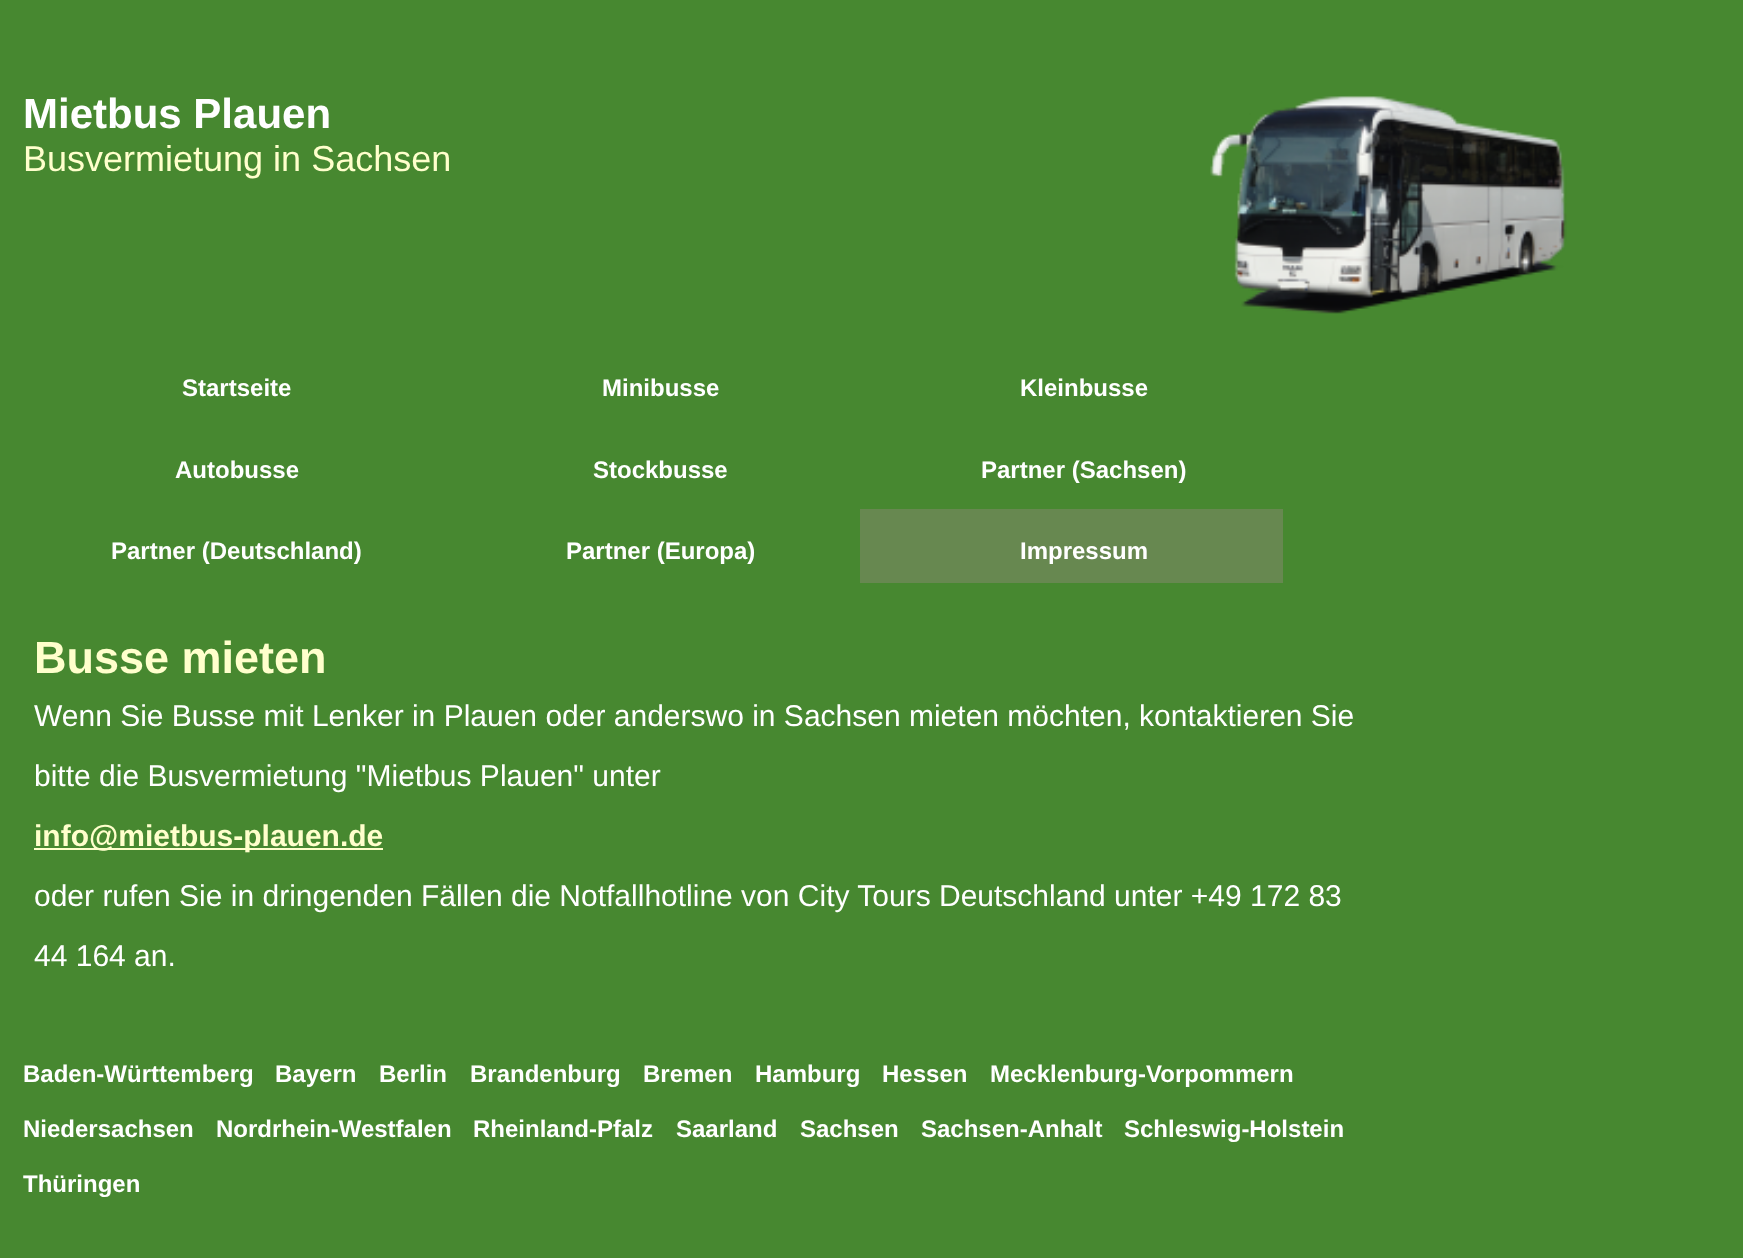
<?xml version="1.0" encoding="UTF-8"?>
<svg xmlns="http://www.w3.org/2000/svg" xmlns:xlink="http://www.w3.org/1999/xlink" width="1743" height="1258">
  <rect width="100%" height="100%" fill="#478830" />
  <image x="1210" y="95" width="357" height="219" xlink:href="image1.png" />
  <rect x="860" y="509" width="423" height="74" fill="#678850" />
  <rect x="34" y="848" width="349" height="2" fill="#ffffcc" />
  <text x="23" y="128" style="font-family: Liberation Sans; font-size: 42px; font-weight: bold; fill: #ffffff">Mietbus Plauen</text>
  <text x="23" y="171" style="font-family: Liberation Sans; font-size: 36px; fill: #ffffcc">Busvermietung in Sachsen</text>
  <text x="182" y="396" style="font-family: Liberation Sans; font-size: 24px; font-weight: bold; fill: #ffffff">Startseite</text>
  <text x="602" y="396" style="font-family: Liberation Sans; font-size: 24px; font-weight: bold; fill: #ffffff">Minibusse</text>
  <text x="1020" y="396" style="font-family: Liberation Sans; font-size: 24px; font-weight: bold; fill: #ffffff">Kleinbusse</text>
  <text x="175" y="478" style="font-family: Liberation Sans; font-size: 24px; font-weight: bold; fill: #ffffff">Autobusse</text>
  <text x="593" y="478" style="font-family: Liberation Sans; font-size: 24px; font-weight: bold; fill: #ffffff">Stockbusse</text>
  <text x="981" y="478" style="font-family: Liberation Sans; font-size: 24px; font-weight: bold; fill: #ffffff">Partner (Sachsen)</text>
  <text x="111" y="559" style="font-family: Liberation Sans; font-size: 24px; font-weight: bold; fill: #ffffff">Partner (Deutschland)</text>
  <text x="566" y="559" style="font-family: Liberation Sans; font-size: 24px; font-weight: bold; fill: #ffffff">Partner (Europa)</text>
  <text x="1020" y="559" style="font-family: Liberation Sans; font-size: 24px; font-weight: bold; fill: #ffffff">Impressum</text>
  <text x="34" y="673" style="font-family: Liberation Sans; font-size: 45px; font-weight: bold; fill: #ffffcc">Busse mieten</text>
  <text x="34" y="726" style="font-family: Liberation Sans; font-size: 30px; fill: #ffffff">Wenn Sie Busse mit Lenker in Plauen oder anderswo in Sachsen mieten möchten, kontaktieren Sie</text>
  <text x="34" y="786" style="font-family: Liberation Sans; font-size: 30px; fill: #ffffff">bitte die Busvermietung "Mietbus Plauen" unter</text>
  <text x="34" y="846" style="font-family: Liberation Sans; font-size: 30px; font-weight: bold; fill: #ffffcc">info@mietbus-plauen.de</text>
  <text x="34" y="906" style="font-family: Liberation Sans; font-size: 30px; fill: #ffffff">oder rufen Sie in dringenden Fällen die Notfallhotline von City Tours Deutschland unter +49 172 83</text>
  <text x="34" y="966" style="font-family: Liberation Sans; font-size: 30px; fill: #ffffff">44 164 an.</text>
  <text x="23" y="1082" style="font-family: Liberation Sans; font-size: 24px; font-weight: bold; fill: #ffffff">Baden-Württemberg</text>
  <text x="275" y="1082" style="font-family: Liberation Sans; font-size: 24px; font-weight: bold; fill: #ffffff">Bayern</text>
  <text x="379" y="1082" style="font-family: Liberation Sans; font-size: 24px; font-weight: bold; fill: #ffffff">Berlin</text>
  <text x="470" y="1082" style="font-family: Liberation Sans; font-size: 24px; font-weight: bold; fill: #ffffff">Brandenburg</text>
  <text x="643" y="1082" style="font-family: Liberation Sans; font-size: 24px; font-weight: bold; fill: #ffffff">Bremen</text>
  <text x="755" y="1082" style="font-family: Liberation Sans; font-size: 24px; font-weight: bold; fill: #ffffff">Hamburg</text>
  <text x="882" y="1082" style="font-family: Liberation Sans; font-size: 24px; font-weight: bold; fill: #ffffff">Hessen</text>
  <text x="990" y="1082" style="font-family: Liberation Sans; font-size: 24px; font-weight: bold; fill: #ffffff">Mecklenburg-Vorpommern</text>
  <text x="23" y="1137" style="font-family: Liberation Sans; font-size: 24px; font-weight: bold; fill: #ffffff">Niedersachsen</text>
  <text x="216" y="1137" style="font-family: Liberation Sans; font-size: 24px; font-weight: bold; fill: #ffffff">Nordrhein-Westfalen</text>
  <text x="473" y="1137" style="font-family: Liberation Sans; font-size: 24px; font-weight: bold; fill: #ffffff">Rheinland-Pfalz</text>
  <text x="676" y="1137" style="font-family: Liberation Sans; font-size: 24px; font-weight: bold; fill: #ffffff">Saarland</text>
  <text x="800" y="1137" style="font-family: Liberation Sans; font-size: 24px; font-weight: bold; fill: #ffffff">Sachsen</text>
  <text x="921" y="1137" style="font-family: Liberation Sans; font-size: 24px; font-weight: bold; fill: #ffffff">Sachsen-Anhalt</text>
  <text x="1124" y="1137" style="font-family: Liberation Sans; font-size: 24px; font-weight: bold; fill: #ffffff">Schleswig-Holstein</text>
  <text x="23" y="1192" style="font-family: Liberation Sans; font-size: 24px; font-weight: bold; fill: #ffffff">Thüringen</text>
</svg>
